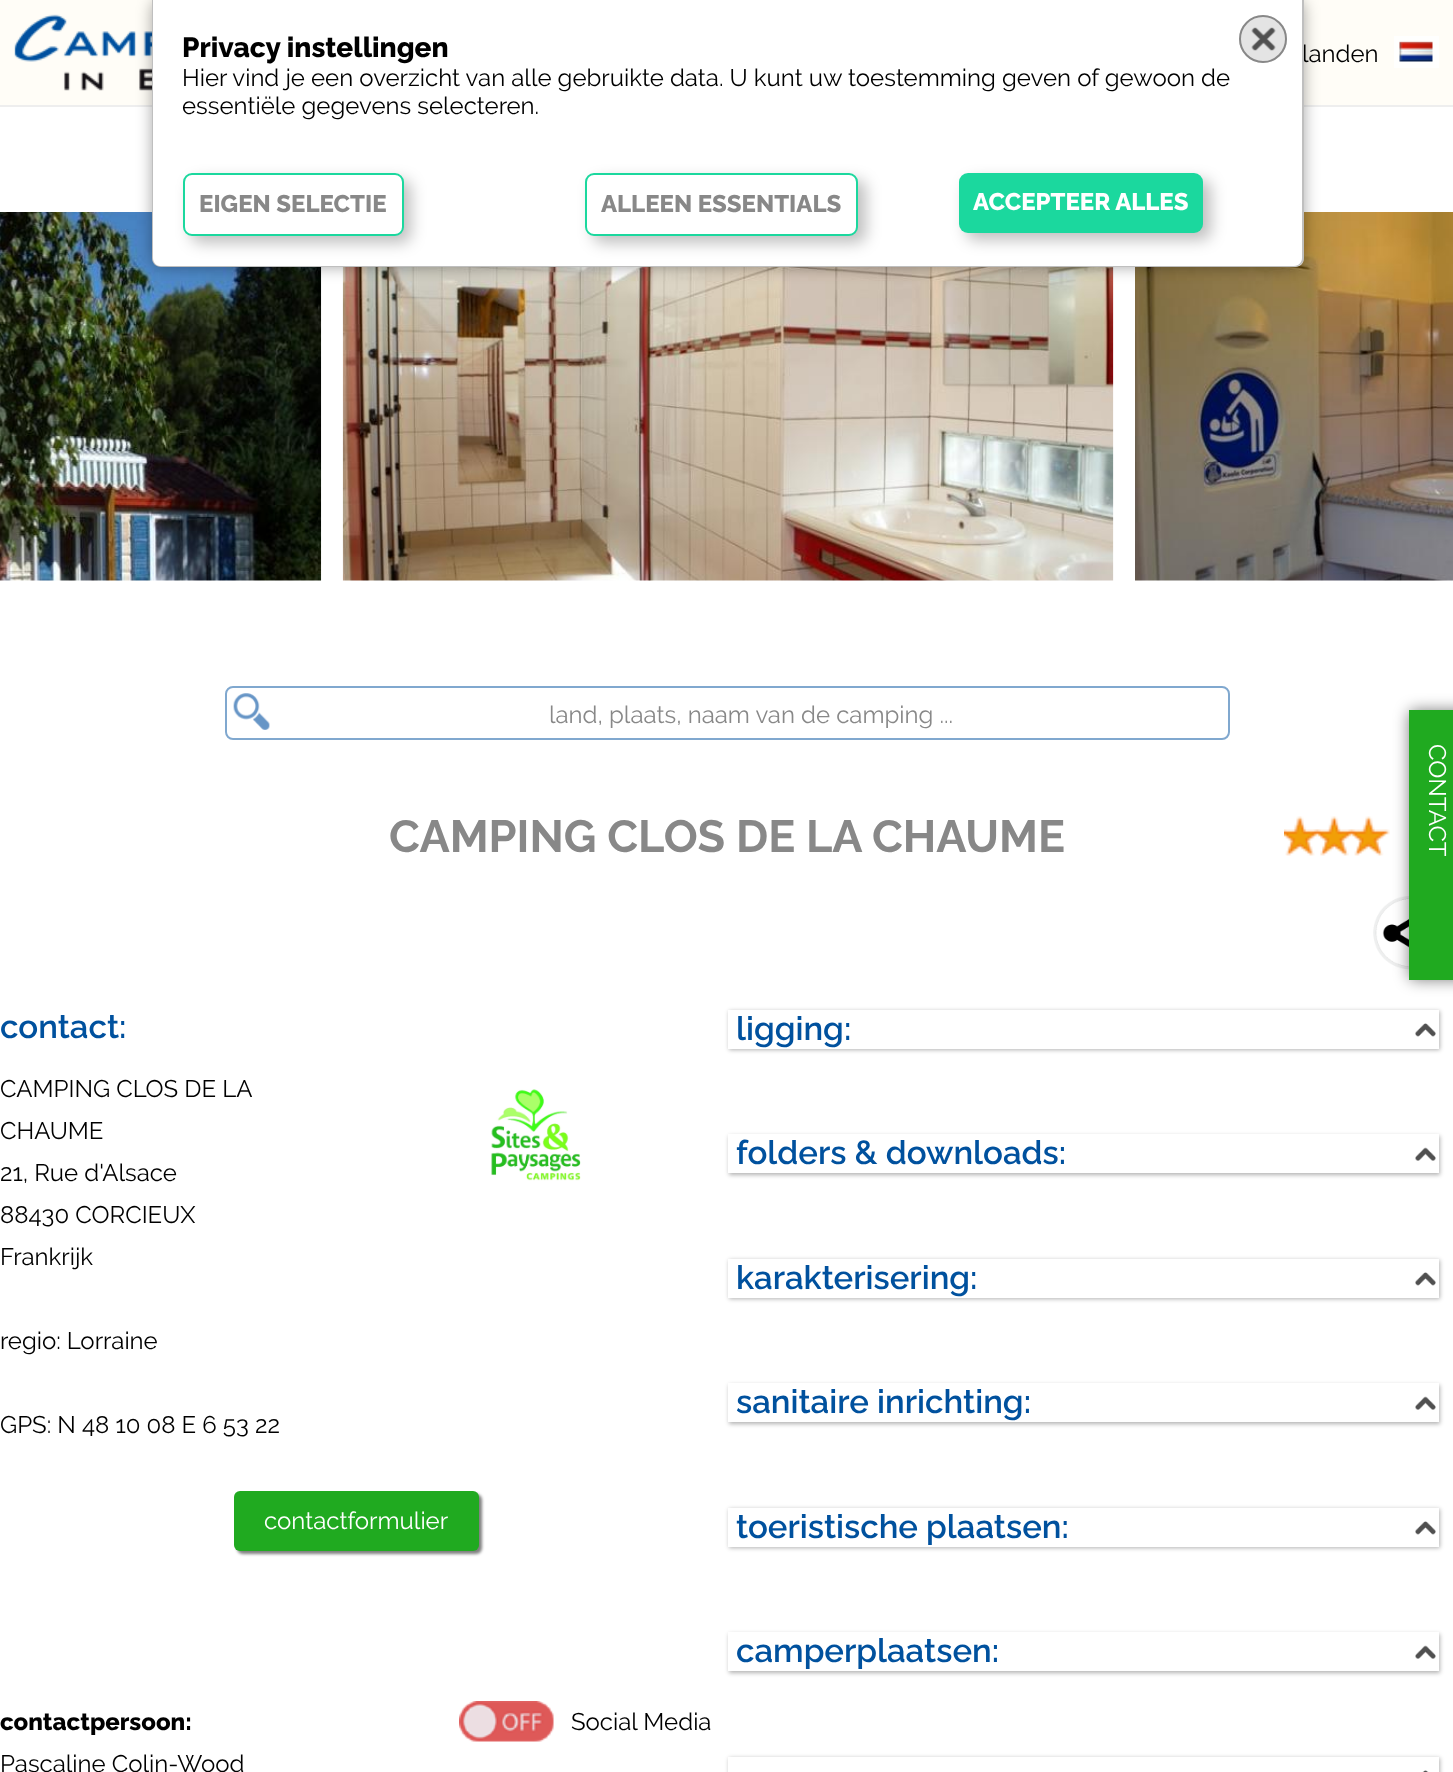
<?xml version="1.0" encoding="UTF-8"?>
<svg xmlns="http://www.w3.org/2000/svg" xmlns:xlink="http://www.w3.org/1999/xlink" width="1453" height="1772">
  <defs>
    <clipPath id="clip1"><path d="M 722 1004 h 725 v 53 h -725 z m 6 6 h 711 v 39 h -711 z" clip-rule="evenodd" /></clipPath>
    <clipPath id="clip2"><path d="M 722 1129 h 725 v 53 h -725 z m 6 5 h 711 v 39 h -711 z" clip-rule="evenodd" /></clipPath>
    <clipPath id="clip3"><path d="M 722 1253 h 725 v 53 h -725 z m 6 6 h 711 v 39 h -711 z" clip-rule="evenodd" /></clipPath>
    <clipPath id="clip4"><path d="M 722 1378 h 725 v 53 h -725 z m 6 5 h 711 v 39 h -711 z" clip-rule="evenodd" /></clipPath>
    <clipPath id="clip5"><path d="M 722 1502 h 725 v 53 h -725 z m 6 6 h 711 v 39 h -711 z" clip-rule="evenodd" /></clipPath>
    <clipPath id="clip6"><path d="M 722 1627 h 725 v 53 h -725 z m 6 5 h 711 v 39 h -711 z" clip-rule="evenodd" /></clipPath>
    <clipPath id="clip7"><path d="M 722 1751 h 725 v 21 h -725 z m 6 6 h 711 v 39 h -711 z" clip-rule="evenodd" /></clipPath>
  </defs>
  <rect width="100%" height="100%" fill="#ffffff" />
  <rect width="1453" height="105" fill="#fffdf7" />
  <rect y="105" width="1453" height="2" fill="#eeeeee" />
  <image x="14" y="14" width="138" height="77" xlink:href="image2.png" />
  <image x="0" y="212" width="322" height="369" xlink:href="image4.png" />
  <image x="342" y="267" width="772" height="314" xlink:href="image5.png" />
  <image x="1135" y="212" width="318" height="369" xlink:href="image6.png" />
  <rect x="152" width="1152" height="267" rx="9" fill="#000000" fill-opacity="0.35" filter="blur(7.5px)" />
  <rect x="1394" y="36" width="45" height="32" fill="#fffffe" />
  <image x="1399" y="41" width="34" height="21" xlink:href="image3.png" />
  <image x="233" y="693" width="37" height="37" xlink:href="image7.png" />
  <rect x="226" y="687" width="1003" height="52" rx="7" fill="none" stroke="#80a8cf" stroke-width="2" />
  <image x="1284" y="816" width="106" height="40" xlink:href="image8.png" />
  <image x="1373" y="896" width="36" height="74" xlink:href="image9.png" />
  <rect x="1409" y="710" width="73" height="270" rx="6" fill="#000000" fill-opacity="0.5" filter="blur(7.5px)" />
  <rect x="1409" y="710" width="44" height="270" fill="#20aa20" />
  <image x="491" y="1089" width="90" height="92" xlink:href="image10.png" />
  <rect x="237" y="1494" width="245" height="60" rx="6" fill="#000000" fill-opacity="0.5" filter="blur(1.5px)" />
  <rect x="234" y="1491" width="245" height="60" rx="6" fill="#20aa20" />
  <image x="459" y="1701" width="95" height="41" xlink:href="image11.png" />
  <g clip-path="url(#clip1)">
    <rect x="729" y="1011" width="711" height="39" fill="#000000" fill-opacity="0.3" filter="blur(2px)" />
  </g>
  <image x="1415" y="1023" width="21" height="14" xlink:href="image12.png" />
  <g clip-path="url(#clip2)">
    <rect x="729" y="1136" width="711" height="39" fill="#000000" fill-opacity="0.3" filter="blur(2px)" />
  </g>
  <image x="1415" y="1147" width="21" height="14" xlink:href="image13.png" />
  <g clip-path="url(#clip3)">
    <rect x="729" y="1260" width="711" height="39" fill="#000000" fill-opacity="0.3" filter="blur(2px)" />
  </g>
  <image x="1415" y="1272" width="21" height="14" xlink:href="image12.png" />
  <g clip-path="url(#clip4)">
    <rect x="729" y="1385" width="711" height="39" fill="#000000" fill-opacity="0.3" filter="blur(2px)" />
  </g>
  <image x="1415" y="1396" width="21" height="14" xlink:href="image13.png" />
  <g clip-path="url(#clip5)">
    <rect x="729" y="1509" width="711" height="39" fill="#000000" fill-opacity="0.3" filter="blur(2px)" />
  </g>
  <image x="1415" y="1521" width="21" height="14" xlink:href="image12.png" />
  <g clip-path="url(#clip6)">
    <rect x="729" y="1634" width="711" height="39" fill="#000000" fill-opacity="0.3" filter="blur(2px)" />
  </g>
  <image x="1415" y="1645" width="21" height="14" xlink:href="image13.png" />
  <g clip-path="url(#clip7)">
    <rect x="729" y="1758" width="711" height="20" fill="#000000" fill-opacity="0.3" filter="blur(2px)" />
  </g>
  <image x="1422" y="1770" width="7" height="2" xlink:href="image14.png" />
  <text x="1302" y="62" style="font-family: Raleway; font-size: 24px; fill: #000000">landen</text>
  <path d="M 152 0 h 1152 v 258 c 0 5 -4 9 -9 9 h -1134 c -5 0 -9 -4 -9 -9 z" fill="#ffffff" />
  <path d="M 152 0 h 1152 v 258 c 0 5 -5 9 -10 9 h -1134 c -4 0 -8 -4 -8 -9 z m 1 0 h 1149 v 258 c 0 4 -3 8 -8 8 h -1134 c -4 0 -7 -4 -7 -8 z" fill="#000000" fill-opacity="0.25" fill-rule="evenodd" />
  <circle cx="1263" cy="39" r="24" fill="#e4e4e4" />
  <image x="1251" y="27" width="25" height="24" xlink:href="image1.png" />
  <circle cx="1263" cy="39" r="23" fill="none" stroke="#888888" stroke-width="2" />
  <rect x="966" y="180" width="245" height="60" rx="9" fill="#000000" fill-opacity="0.25" filter="blur(7.5px)" />
  <rect x="959" y="173" width="244" height="60" rx="9" fill="#1bd89e" />
  <text x="973" y="210" style="font-family: Raleway; font-size: 24px; font-weight: 800; fill: #ffffff">ACCEPTEER ALLES</text>
  <rect x="593" y="180" width="273" height="63" rx="9" fill="#000000" fill-opacity="0.25" filter="blur(7.5px)" />
  <rect x="586" y="174" width="271" height="61" rx="8" fill="#ffffff" stroke="#1bd89e" stroke-width="2" />
  <text x="601" y="212" style="font-family: Raleway; font-size: 24px; font-weight: 800; fill: #888888">ALLEEN ESSENTIALS</text>
  <rect x="191" y="180" width="220" height="63" rx="9" fill="#000000" fill-opacity="0.25" filter="blur(7.5px)" />
  <rect x="184" y="174" width="219" height="61" rx="8" fill="#ffffff" stroke="#1bd89e" stroke-width="2" />
  <text x="199" y="212" style="font-family: Raleway; font-size: 24px; font-weight: 800; fill: #888888">EIGEN SELECTIE</text>
  <text x="182" y="114" style="font-family: Raleway; font-size: 24px; fill: #000000">essentiële gegevens selecteren.</text>
  <text x="182" y="86" style="font-family: Raleway; font-size: 24px; fill: #000000">Hier vind je een overzicht van alle gebruikte data. U kunt uw toestemming geven of gewoon de</text>
  <text x="182" y="57" style="font-family: Raleway; font-size: 28px; font-weight: 800; fill: #000000">Privacy instellingen</text>
  <text x="549" y="723" style="font-family: Raleway; font-size: 24px; fill: #888888">land, plaats, naam van de camping ...</text>
  <text x="1429" y="744" transform="rotate(90 1429 744)" style="font-family: Raleway; font-size: 24px; fill: #ffffff">CONTACT</text>
  <text x="389" y="852" style="font-family: Raleway; font-size: 45px; font-weight: bold; fill: #888888">CAMPING CLOS DE LA CHAUME</text>
  <text x="0" y="1038" style="font-family: Raleway; font-size: 33px; font-weight: 600; fill: #00519e">contact:</text>
  <text x="0" y="1097" style="font-family: Raleway; font-size: 24px; fill: #000000">CAMPING CLOS DE LA</text>
  <text x="0" y="1139" style="font-family: Raleway; font-size: 24px; fill: #000000">CHAUME</text>
  <text x="0" y="1181" style="font-family: Raleway; font-size: 24px; fill: #000000">21, Rue d'Alsace</text>
  <text x="0" y="1223" style="font-family: Raleway; font-size: 24px; fill: #000000">88430 CORCIEUX</text>
  <text x="0" y="1265" style="font-family: Raleway; font-size: 24px; fill: #000000">Frankrijk</text>
  <text x="0" y="1349" style="font-family: Raleway; font-size: 24px; fill: #000000">regio: Lorraine</text>
  <text x="0" y="1433" style="font-family: Raleway; font-size: 24px; fill: #000000">GPS: N 48 10 08 E 6 53 22</text>
  <text x="264" y="1529" style="font-family: Raleway; font-size: 24px; fill: #ffffff">contactformulier</text>
  <text x="0" y="1730" style="font-family: Raleway; font-size: 24px; font-weight: 800; fill: #000000">contactpersoon:</text>
  <text x="0" y="1772" style="font-family: Raleway; font-size: 24px; fill: #000000">Pascaline Colin-Wood</text>
  <text x="571" y="1730" style="font-family: Raleway; font-size: 24px; fill: #000000">Social Media</text>
  <text x="736" y="1040" style="font-family: Raleway; font-size: 33px; font-weight: 600; fill: #00519e">ligging:</text>
  <text x="736" y="1164" style="font-family: Raleway; font-size: 33px; font-weight: 600; fill: #00519e">folders &amp; downloads:</text>
  <text x="736" y="1289" style="font-family: Raleway; font-size: 33px; font-weight: 600; fill: #00519e">karakterisering:</text>
  <text x="736" y="1413" style="font-family: Raleway; font-size: 33px; font-weight: 600; fill: #00519e">sanitaire inrichting:</text>
  <text x="736" y="1538" style="font-family: Raleway; font-size: 33px; font-weight: 600; fill: #00519e">toeristische plaatsen:</text>
  <text x="736" y="1662" style="font-family: Raleway; font-size: 33px; font-weight: 600; fill: #00519e">camperplaatsen:</text>
</svg>
